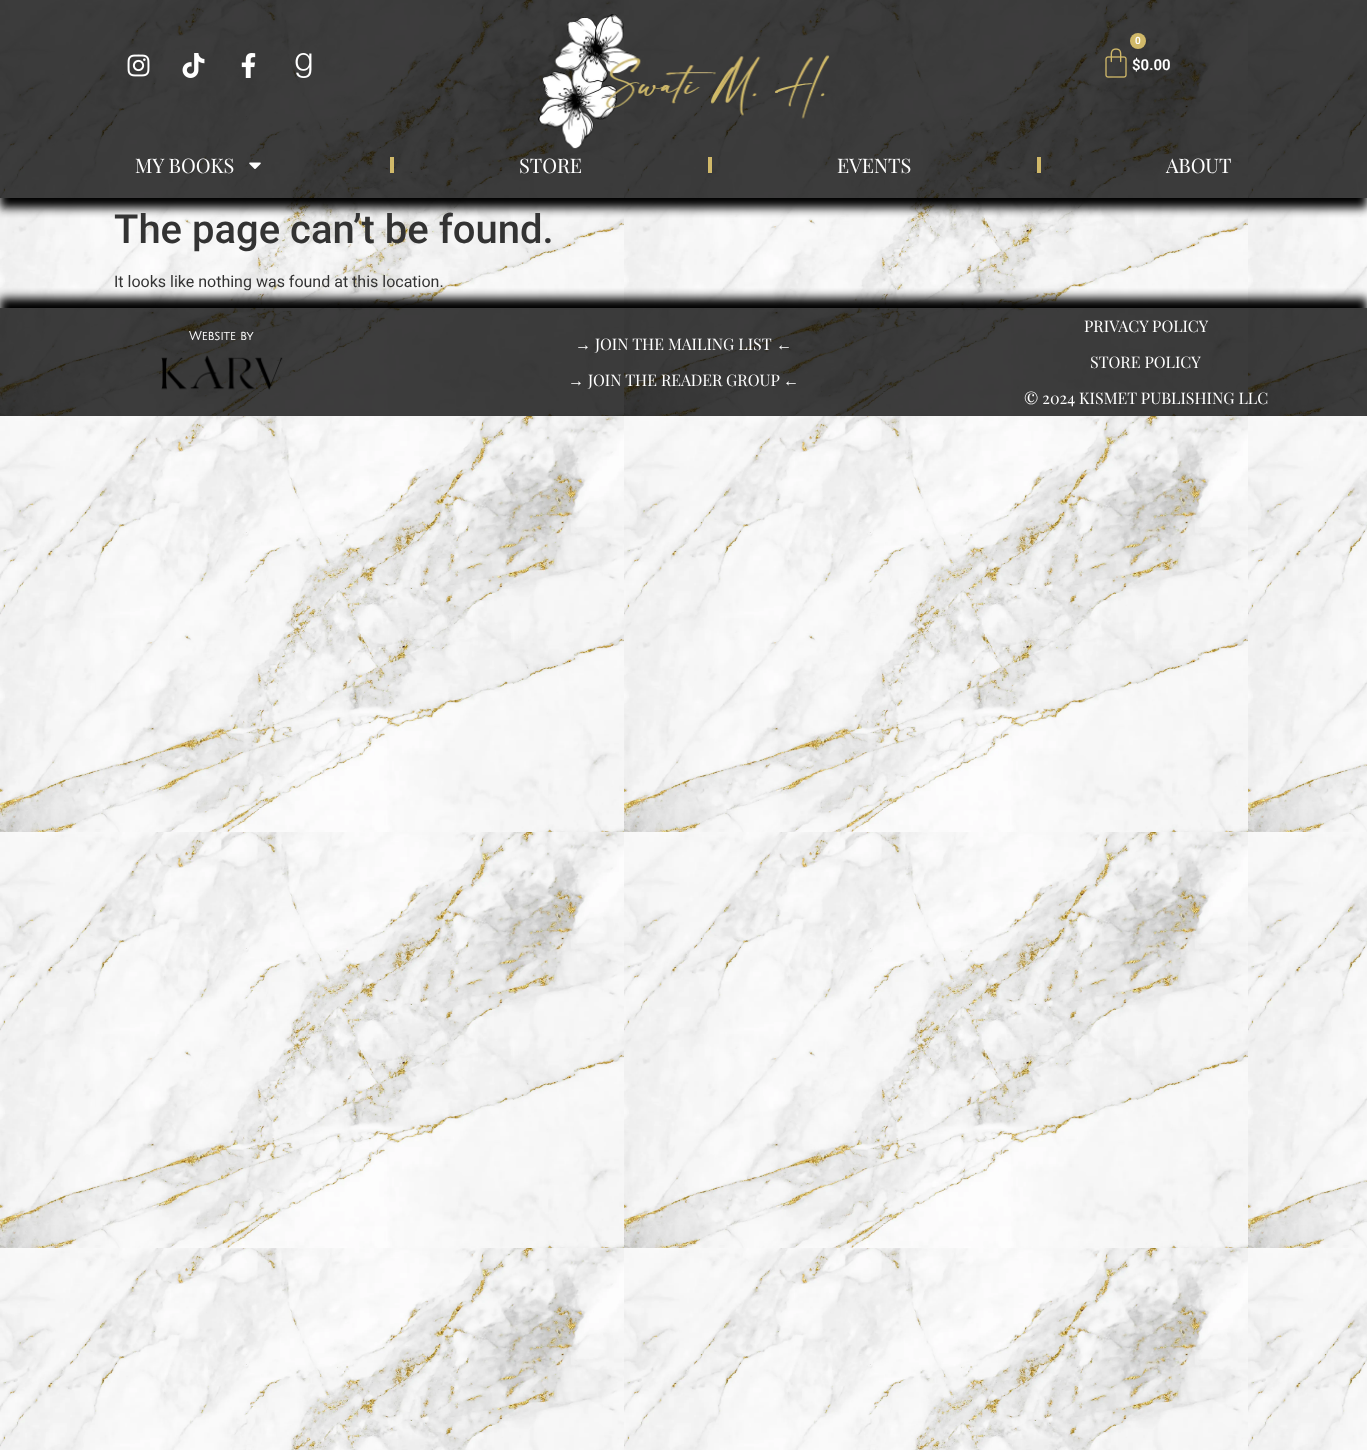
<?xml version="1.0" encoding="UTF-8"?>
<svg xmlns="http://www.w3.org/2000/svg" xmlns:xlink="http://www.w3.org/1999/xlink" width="1367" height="1450">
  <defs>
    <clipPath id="clip1"><rect x="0" y="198" width="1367" height="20" /></clipPath>
    <clipPath id="clip2"><rect x="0" y="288" width="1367" height="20" /></clipPath>
  </defs>
  <rect width="100%" height="100%" fill="#ffffff" />
  <image x="0" y="0" width="1367" height="1450" xlink:href="image1.png" />
  <g clip-path="url(#clip1)">
    <rect y="142" width="1367" height="66" fill="#000000" filter="blur(5px)" />
  </g>
  <rect width="1367" height="132" fill="#000000" fill-opacity="0.76" />
  <image x="127" y="54" width="23" height="23" xlink:href="image2.png" />
  <image x="182" y="53" width="23" height="25" xlink:href="image3.png" />
  <image x="241" y="53" width="15" height="25" xlink:href="image4.png" />
  <image x="295" y="53" width="17" height="25" xlink:href="image5.png" />
  <rect y="132" width="1367" height="66" fill="#000000" fill-opacity="0.76" />
  <image x="538" y="14" width="292" height="135" xlink:href="image6.png" />
  <circle cx="1138" cy="41" r="8" fill="#d1b969" />
  <image x="1105" y="48" width="22" height="30" xlink:href="image7.png" />
  <image x="249" y="162" width="12" height="7" xlink:href="image8.png" />
  <rect x="390" y="157" width="4" height="16" fill="#d1b969" />
  <rect x="708" y="157" width="4" height="16" fill="#d1b969" />
  <rect x="1037" y="157" width="4" height="16" fill="#d1b969" />
  <g clip-path="url(#clip2)">
    <rect y="298" width="1367" height="108" fill="#000000" filter="blur(5px)" />
  </g>
  <rect y="308" width="1367" height="108" fill="#000000" fill-opacity="0.76" />
  <image x="161" y="355" width="122" height="35" xlink:href="image9.png" />
  <text x="1135" y="44" style="font-family: Roboto; font-size: 10px; font-weight: 600; fill: #ffffff">0</text>
  <text x="1132" y="70" style="font-family: Roboto; font-size: 15px; font-weight: 600; fill: #ffffff">$0.00</text>
  <text x="135" y="173" style="font-family: Playfair Display SC; font-size: 20px; fill: #ffffff">MY BOOKS</text>
  <text x="519" y="173" style="font-family: Playfair Display SC; font-size: 20px; fill: #ffffff">STORE</text>
  <text x="837" y="173" style="font-family: Playfair Display SC; font-size: 20px; fill: #ffffff">EVENTS</text>
  <text x="1166" y="173" style="font-family: Playfair Display SC; font-size: 20px; fill: #ffffff">ABOUT</text>
  <text x="114" y="243" style="font-family: Roboto; font-size: 40px; font-weight: 500; fill: #333333">The page can’t be found.</text>
  <text x="114" y="287" style="font-family: Roboto; font-size: 16px; fill: #333333">It looks like nothing was found at this location.</text>
  <text x="189" y="340" style="font-family: Julius Sans One; font-size: 12px; font-weight: bold; fill: #ffffff">Website by</text>
  <text x="1084" y="332" style="font-family: Playfair Display SC; font-size: 16px; fill: #ffffff">PRIVACY POLICY</text>
  <text x="1090" y="368" style="font-family: Playfair Display SC; font-size: 16px; fill: #ffffff">STORE POLICY</text>
  <text x="1024" y="404" style="font-family: Playfair Display SC; font-size: 16px; fill: #ffffff">© 2024 KISMET PUBLISHING LLC</text>
  <text x="575" y="350" style="font-family: Liberation Sans; font-size: 16px; fill: #ffffff">→</text>
  <text x="595" y="350" style="font-family: Playfair Display SC; font-size: 16px; fill: #ffffff">JOIN THE MAILING LIST</text>
  <text x="776" y="350" style="font-family: Liberation Sans; font-size: 16px; fill: #ffffff">←</text>
  <text x="568" y="386" style="font-family: Liberation Sans; font-size: 16px; fill: #ffffff">→</text>
  <text x="588" y="386" style="font-family: Playfair Display SC; font-size: 16px; fill: #ffffff">JOIN THE READER GROUP</text>
  <text x="783" y="386" style="font-family: Liberation Sans; font-size: 16px; fill: #ffffff">←</text>
</svg>
